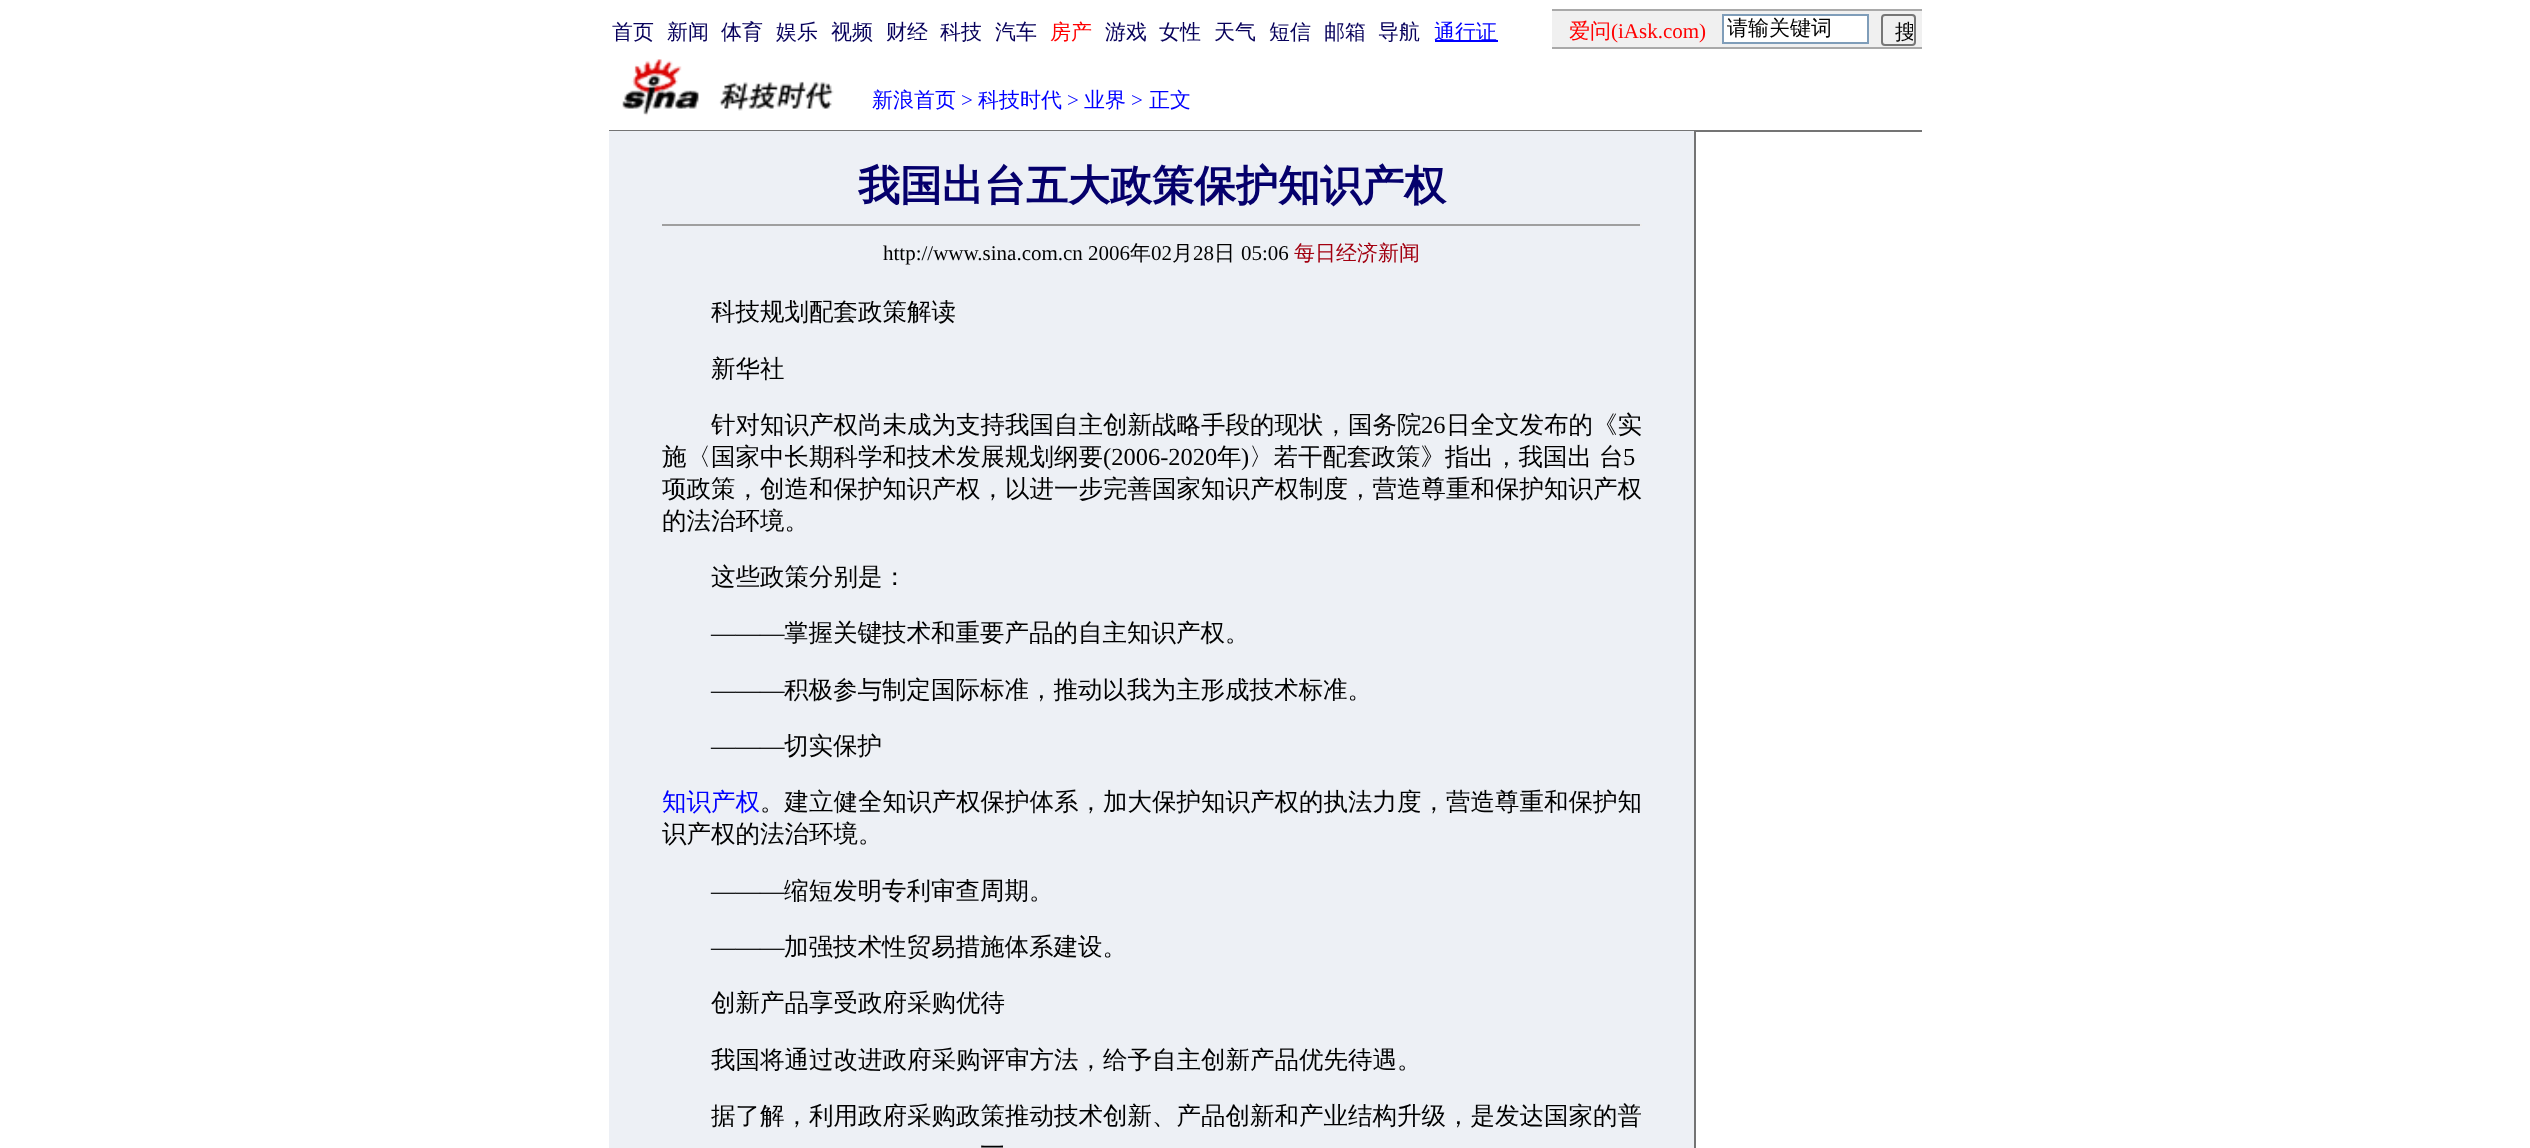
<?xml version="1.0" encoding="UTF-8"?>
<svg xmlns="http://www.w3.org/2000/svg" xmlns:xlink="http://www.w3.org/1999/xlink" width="2530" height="1148">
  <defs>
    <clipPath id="clip1"><rect x="1885" y="18" width="28" height="24" /></clipPath>
  </defs>
  <rect width="100%" height="100%" fill="#ffffff" />
  <rect x="1435" y="40" width="63" height="2" fill="#0000ff" />
  <rect x="1552" y="9" width="370" height="2" fill="#a9a9a9" />
  <rect x="1552" y="11" width="370" height="36" fill="#f0f0f0" />
  <rect x="1723" y="15" width="145" height="28" fill="#ffffff" stroke="#7f9db9" stroke-width="2" />
  <rect x="1882" y="15" width="33" height="30" rx="3" fill="none" stroke="#767676" stroke-width="2" />
  <rect x="1552" y="47" width="370" height="2" fill="#a9a9a9" />
  <image x="622" y="59" width="212" height="57" xlink:href="image1.png" />
  <rect x="609" y="130" width="1313" height="2" fill="#747474" />
  <rect x="609" y="131" width="1085" height="1017" fill="#edf0f5" />
  <rect x="662" y="224" width="980" height="2" fill="#9f9f9f" />
  <rect x="1640" y="224" width="2" height="2" fill="#eeeeee" />
  <rect x="1694" y="131" width="2" height="1017" fill="#747474" />
  <text x="612" y="39" style="font-family: WenQuanYi Zen Hei; font-size: 21px; font-weight: 500; fill: #07015b">首页</text>
  <text x="667" y="39" style="font-family: WenQuanYi Zen Hei; font-size: 21px; font-weight: 500; fill: #07015b">新闻</text>
  <text x="721" y="39" style="font-family: WenQuanYi Zen Hei; font-size: 21px; font-weight: 500; fill: #07015b">体育</text>
  <text x="776" y="39" style="font-family: WenQuanYi Zen Hei; font-size: 21px; font-weight: 500; fill: #07015b">娱乐</text>
  <text x="831" y="39" style="font-family: WenQuanYi Zen Hei; font-size: 21px; font-weight: 500; fill: #07015b">视频</text>
  <text x="886" y="39" style="font-family: WenQuanYi Zen Hei; font-size: 21px; font-weight: 500; fill: #07015b">财经</text>
  <text x="940" y="39" style="font-family: WenQuanYi Zen Hei; font-size: 21px; font-weight: 500; fill: #07015b">科技</text>
  <text x="995" y="39" style="font-family: WenQuanYi Zen Hei; font-size: 21px; font-weight: 500; fill: #07015b">汽车</text>
  <text x="1050" y="39" style="font-family: WenQuanYi Zen Hei; font-size: 21px; font-weight: 500; fill: #ff0000">房产</text>
  <text x="1105" y="39" style="font-family: WenQuanYi Zen Hei; font-size: 21px; font-weight: 500; fill: #07015b">游戏</text>
  <text x="1159" y="39" style="font-family: WenQuanYi Zen Hei; font-size: 21px; font-weight: 500; fill: #07015b">女性</text>
  <text x="1214" y="39" style="font-family: WenQuanYi Zen Hei; font-size: 21px; font-weight: 500; fill: #07015b">天气</text>
  <text x="1269" y="39" style="font-family: WenQuanYi Zen Hei; font-size: 21px; font-weight: 500; fill: #07015b">短信</text>
  <text x="1324" y="39" style="font-family: WenQuanYi Zen Hei; font-size: 21px; font-weight: 500; fill: #07015b">邮箱</text>
  <text x="1378" y="39" style="font-family: WenQuanYi Zen Hei; font-size: 21px; font-weight: 500; fill: #07015b">导航</text>
  <text x="1434" y="39" style="font-family: WenQuanYi Zen Hei; font-size: 21px; font-weight: 500; fill: #0000ff">通行证</text>
  <text x="1569" y="38" style="font-family: WenQuanYi Zen Hei; font-size: 21px; font-weight: 500; fill: #ff0000">爱问</text>
  <text x="1611" y="38" style="font-family: Liberation Serif; font-size: 21px; fill: #ff0000">(iAsk.com)</text>
  <text x="1727" y="35" style="font-family: WenQuanYi Zen Hei; font-size: 21px; font-weight: 500; fill: #000000">请输关键词</text>
  <g clip-path="url(#clip1)">
    <text x="1895" y="39" style="font-family: WenQuanYi Zen Hei; font-size: 21px; font-weight: 500; fill: #000000">搜</text>
  </g>
  <text x="872" y="107" style="font-family: WenQuanYi Zen Hei; font-size: 21px; font-weight: 500; fill: #0000ff">新浪首页</text>
  <text x="961" y="107" style="font-family: Liberation Serif; font-size: 21px; fill: #0000ff">&gt;</text>
  <text x="978" y="107" style="font-family: WenQuanYi Zen Hei; font-size: 21px; font-weight: 500; fill: #0000ff">科技时代</text>
  <text x="1067" y="107" style="font-family: Liberation Serif; font-size: 21px; fill: #0000ff">&gt;</text>
  <text x="1084" y="107" style="font-family: WenQuanYi Zen Hei; font-size: 21px; font-weight: 500; fill: #0000ff">业界</text>
  <text x="1131" y="107" style="font-family: Liberation Serif; font-size: 21px; fill: #0000ff">&gt;</text>
  <text x="1149" y="107" style="font-family: WenQuanYi Zen Hei; font-size: 21px; font-weight: 500; fill: #0000ff">正文</text>
  <text x="858" y="200" style="font-family: WenQuanYi Zen Hei; font-size: 42px; font-weight: bold; fill: #05006c">我国出台五大政策保护知识产权</text>
  <text x="883" y="260" style="font-family: Liberation Serif; font-size: 21px; fill: #000000">http://www.sina.com.cn 2006</text>
  <text x="1130" y="260" style="font-family: WenQuanYi Zen Hei; font-size: 21px; font-weight: 500; fill: #000000">年</text>
  <text x="1151" y="260" style="font-family: Liberation Serif; font-size: 21px; fill: #000000">02</text>
  <text x="1172" y="260" style="font-family: WenQuanYi Zen Hei; font-size: 21px; font-weight: 500; fill: #000000">月</text>
  <text x="1193" y="260" style="font-family: Liberation Serif; font-size: 21px; fill: #000000">28</text>
  <text x="1214" y="260" style="font-family: WenQuanYi Zen Hei; font-size: 21px; font-weight: 500; fill: #000000">日</text>
  <text x="1241" y="260" style="font-family: Liberation Serif; font-size: 21px; fill: #000000">05:06</text>
  <text x="1294" y="260" style="font-family: WenQuanYi Zen Hei; font-size: 21px; font-weight: 500; fill: #a20010">每日经济新闻</text>
  <text x="711" y="320" style="font-family: WenQuanYi Zen Hei; font-size: 24.5px; font-weight: 500; fill: #000000">科技规划配套政策解读</text>
  <text x="711" y="377" style="font-family: WenQuanYi Zen Hei; font-size: 24.5px; font-weight: 500; fill: #000000">新华社</text>
  <text x="711" y="433" style="font-family: WenQuanYi Zen Hei; font-size: 24.5px; font-weight: 500; fill: #000000">针对知识产权尚未成为支持我国自主创新战略手段的现状，国务院</text>
  <text x="1421" y="433" style="font-family: Liberation Serif; font-size: 24.5px; fill: #000000">26</text>
  <text x="1446" y="433" style="font-family: WenQuanYi Zen Hei; font-size: 24.5px; font-weight: 500; fill: #000000">日全文发布的《实</text>
  <text x="662" y="465" style="font-family: WenQuanYi Zen Hei; font-size: 24.5px; font-weight: 500; fill: #000000">施〈国家中长期科学和技术发展规划纲要</text>
  <text x="1103" y="465" style="font-family: Liberation Serif; font-size: 24.5px; fill: #000000">(2006-2020</text>
  <text x="1217" y="465" style="font-family: WenQuanYi Zen Hei; font-size: 24.5px; font-weight: 500; fill: #000000">年</text>
  <text x="1241" y="465" style="font-family: Liberation Serif; font-size: 24.5px; fill: #000000">)</text>
  <text x="1249" y="465" style="font-family: WenQuanYi Zen Hei; font-size: 24.5px; font-weight: 500; fill: #000000">〉若干配套政策》指出，我国出</text>
  <text x="1599" y="465" style="font-family: WenQuanYi Zen Hei; font-size: 24.5px; font-weight: 500; fill: #000000">台</text>
  <text x="1623" y="465" style="font-family: Liberation Serif; font-size: 24.5px; fill: #000000">5</text>
  <text x="662" y="497" style="font-family: WenQuanYi Zen Hei; font-size: 24.5px; font-weight: 500; fill: #000000">项政策，创造和保护知识产权，以进一步完善国家知识产权制度，营造尊重和保护知识产权</text>
  <text x="662" y="529" style="font-family: WenQuanYi Zen Hei; font-size: 24.5px; font-weight: 500; fill: #000000">的法治环境。</text>
  <text x="711" y="585" style="font-family: WenQuanYi Zen Hei; font-size: 24.5px; font-weight: 500; fill: #000000">这些政策分别是：</text>
  <text x="711" y="641" style="font-family: Liberation Serif; font-size: 24.5px; fill: #000000">———</text>
  <text x="784" y="641" style="font-family: WenQuanYi Zen Hei; font-size: 24.5px; font-weight: 500; fill: #000000">掌握关键技术和重要产品的自主知识产权。</text>
  <text x="711" y="698" style="font-family: Liberation Serif; font-size: 24.5px; fill: #000000">———</text>
  <text x="784" y="698" style="font-family: WenQuanYi Zen Hei; font-size: 24.5px; font-weight: 500; fill: #000000">积极参与制定国际标准，推动以我为主形成技术标准。</text>
  <text x="711" y="754" style="font-family: Liberation Serif; font-size: 24.5px; fill: #000000">———</text>
  <text x="784" y="754" style="font-family: WenQuanYi Zen Hei; font-size: 24.5px; font-weight: 500; fill: #000000">切实保护</text>
  <text x="662" y="810" style="font-family: WenQuanYi Zen Hei; font-size: 24.5px; font-weight: 500; fill: #0000ff">知识产权</text>
  <text x="760" y="810" style="font-family: WenQuanYi Zen Hei; font-size: 24.5px; font-weight: 500; fill: #000000">。建立健全知识产权保护体系，加大保护知识产权的执法力度，营造尊重和保护知</text>
  <text x="662" y="842" style="font-family: WenQuanYi Zen Hei; font-size: 24.5px; font-weight: 500; fill: #000000">识产权的法治环境。</text>
  <text x="711" y="899" style="font-family: Liberation Serif; font-size: 24.5px; fill: #000000">———</text>
  <text x="784" y="899" style="font-family: WenQuanYi Zen Hei; font-size: 24.5px; font-weight: 500; fill: #000000">缩短发明专利审查周期。</text>
  <text x="711" y="955" style="font-family: Liberation Serif; font-size: 24.5px; fill: #000000">———</text>
  <text x="784" y="955" style="font-family: WenQuanYi Zen Hei; font-size: 24.5px; font-weight: 500; fill: #000000">加强技术性贸易措施体系建设。</text>
  <text x="711" y="1011" style="font-family: WenQuanYi Zen Hei; font-size: 24.5px; font-weight: 500; fill: #000000">创新产品享受政府采购优待</text>
  <text x="711" y="1068" style="font-family: WenQuanYi Zen Hei; font-size: 24.5px; font-weight: 500; fill: #000000">我国将通过改进政府采购评审方法，给予自主创新产品优先待遇。</text>
  <text x="711" y="1124" style="font-family: WenQuanYi Zen Hei; font-size: 24.5px; font-weight: 500; fill: #000000">据了解，利用政府采购政策推动技术创新、产品创新和产业结构升级，是发达国家的普</text>
  <text x="980" y="1156" style="font-family: WenQuanYi Zen Hei; font-size: 24.5px; font-weight: 500; fill: #000000">一</text>
</svg>
